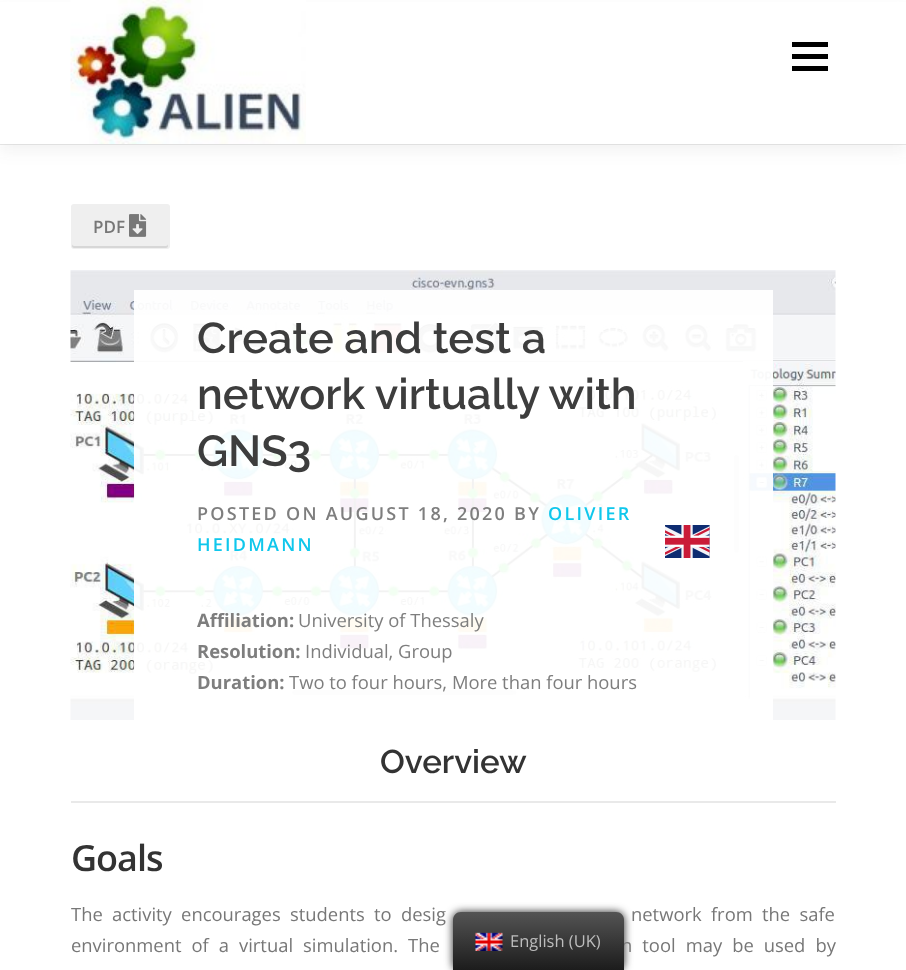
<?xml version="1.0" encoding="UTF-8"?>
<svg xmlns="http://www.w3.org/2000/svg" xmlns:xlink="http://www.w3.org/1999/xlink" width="906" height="970">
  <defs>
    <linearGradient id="g1" gradientUnits="userSpaceOnUse" x1="539" y1="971" x2="539" y2="912"><stop offset="0" stop-color="#1b1b1b" /><stop offset="1" stop-color="#545454" /></linearGradient>
  </defs>
  <rect width="100%" height="100%" fill="#ffffff" />
  <rect y="144" width="906" height="1" fill="#e9e9e9" />
  <rect y="8" width="906" height="144" fill="#323232" fill-opacity="0.06" filter="blur(7.5px)" />
  <rect y="2" width="906" height="142" fill="#ffffff" />
  <image x="70" y="0" width="236" height="144" xlink:href="image1.png" />
  <rect x="792" y="54" width="36" height="5" fill="#000000" />
  <rect x="792" y="42" width="36" height="5" fill="#000000" />
  <rect x="792" y="66" width="36" height="5" fill="#000000" />
  <rect x="71" y="204" width="99" height="45" rx="3" fill="#efefef" />
  <path d="M 72 244 v 2 c 0 1 1 2 2 2 h 92 c 1 0 2 -1 2 -2 v -2 c 0 1 -1 2 -2 2 h -92 c -1 0 -2 -1 -2 -2 z" fill="#d7d7d7" />
  <image x="129" y="214" width="18" height="23" xlink:href="image2.png" />
  <image x="70" y="270" width="766" height="450" xlink:href="image3.png" />
  <rect x="134" y="290" width="639" height="430" fill="#ffffff" fill-opacity="0.95" />
  <image x="665" y="525" width="45" height="33" xlink:href="image4.png" />
  <rect x="71" y="801" width="765" height="2" fill="#e9e9e9" />
  <rect x="453" y="912" width="171" height="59" rx="8" fill="#212121" filter="blur(4px)" />
  <text x="93" y="233" style="font-family: Open Sans; font-size: 17px; font-weight: 600; fill: #777777">PDF</text>
  <text x="197" y="353" style="font-family: Raleway; font-size: 43.25px; font-weight: 600; fill: #3d3d3d">Create and test a</text>
  <text x="197" y="409" style="font-family: Raleway; font-size: 43.25px; font-weight: 600; fill: #3d3d3d">network virtually with</text>
  <text x="197" y="466" style="font-family: Raleway; font-size: 43.25px; font-weight: 600; fill: #3d3d3d">GNS3</text>
  <text x="197" y="520" style="font-family: Open Sans; font-size: 18px; font-weight: 600; letter-spacing: 2.25px; fill: #7e7e7e">POSTED ON AUGUST 18, 2020 BY</text>
  <text x="548" y="520" style="font-family: Open Sans; font-size: 18px; font-weight: 600; letter-spacing: 2.25px; fill: #0fc7ec">OLIVIER</text>
  <text x="197" y="551" style="font-family: Open Sans; font-size: 18px; font-weight: 600; letter-spacing: 2.25px; fill: #0fc7ec">HEIDMANN</text>
  <text x="197" y="627" style="font-family: Open Sans; font-size: 18.4px; font-weight: bold; fill: #7e7e7e">Affiliation:</text>
  <text x="298" y="627" style="font-family: Open Sans; font-size: 18.4px; fill: #7e7e7e">University of Thessaly</text>
  <text x="197" y="658" style="font-family: Open Sans; font-size: 18.4px; font-weight: bold; fill: #7e7e7e">Resolution:</text>
  <text x="305" y="658" style="font-family: Open Sans; font-size: 18.4px; fill: #7e7e7e">Individual, Group</text>
  <text x="197" y="689" style="font-family: Open Sans; font-size: 18.4px; font-weight: bold; fill: #7e7e7e">Duration:</text>
  <text x="289" y="689" style="font-family: Open Sans; font-size: 18.4px; fill: #7e7e7e">Two to four hours, More than four hours</text>
  <text x="380" y="773" style="font-family: Raleway; font-size: 33px; font-weight: 600; fill: #333333">Overview</text>
  <text x="71" y="871" style="font-family: Open Sans; font-size: 36px; font-weight: 600; letter-spacing: -1px; fill: #333333">Goals</text>
  <text x="71" y="921" word-spacing="4.5" style="font-family: Open Sans; font-size: 18.4px; fill: #777777">The activity encourages students to desig</text>
  <text x="631" y="921" word-spacing="4.5" style="font-family: Open Sans; font-size: 18.4px; fill: #777777">network from the safe</text>
  <text x="71" y="952" word-spacing="5.25" style="font-family: Open Sans; font-size: 18.4px; fill: #777777">environment of a virtual simulation. The</text>
  <text x="621" y="952" word-spacing="5.25" style="font-family: Open Sans; font-size: 18.4px; fill: #777777">n tool may be used by</text>
  <path d="M 461 912 h 155 c 4.5 0 8 3.5 8 8 v 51 h -171 v -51 c 0 -4.5 3.5 -8 8 -8 z" fill="url(#g1)" />
  <image x="475" y="932" width="28" height="19" xlink:href="image5.png" />
  <text x="510" y="947" style="font-family: Open Sans; font-size: 16.5px; fill: #bdbdbd">English (UK)</text>
</svg>
